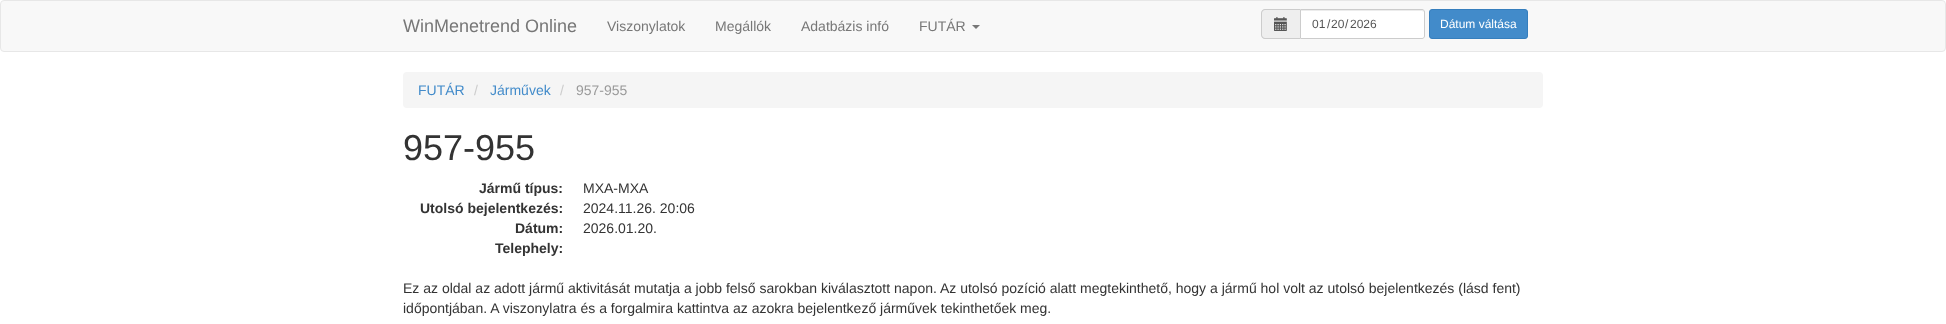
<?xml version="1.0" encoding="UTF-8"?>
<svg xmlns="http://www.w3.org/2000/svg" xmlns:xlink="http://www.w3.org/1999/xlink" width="1946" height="324">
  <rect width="100%" height="100%" fill="#ffffff" />
  <rect x="0.5" y="0.5" width="1945" height="51" rx="3.5" fill="#f8f8f8" stroke="#e7e7e7" />
  <path d="M 972 25 h 8 l -4 4 z" fill="#777777" />
  <path d="M 1265 9 h 35 v 30 h -35 c -2 0 -4 -2 -4 -4 v -22 c 0 -2 2 -4 4 -4 z" fill="#eeeeee" />
  <path d="M 1265 9 h 35 v 30 h -35 c -2 0 -4 -2 -4 -4 v -22 c 0 -2 2 -4 4 -4 z m 0 1 h 35 v 28 h -35 c -1.5 0 -3 -1.5 -3 -3 v -22 c 0 -1.5 1.5 -3 3 -3 z" fill="#cccccc" fill-rule="evenodd" />
  <image x="1274" y="17" width="13" height="14" xlink:href="image1.png" />
  <path d="M 1300 9 h 122 c 1.5 0 3 1.5 3 3 v 24 c 0 1.5 -1.5 3 -3 3 h -122 z" fill="#ffffff" />
  <path d="M 1301 11 h 121 l 2 1 v 1 c 0 -1 0 -3 -2 -3 h -121 z" fill="#ececec" />
  <path d="M 1300.5 9.5 h 121.5 c 1.5 0 2.5 1 2.5 2.5 v 24 c 0 1.5 -1 2.5 -2.5 2.5 h -121.5 z" fill="none" stroke="#cccccc" />
  <rect x="1429.5" y="9.5" width="98" height="29" rx="2.5" fill="#428bca" stroke="#357ebd" />
  <rect x="403" y="72" width="1140" height="36" rx="4" fill="#f5f5f5" />
  <text x="403" y="32" style="font-family: Liberation Sans; font-size: 18px; fill: #777777">WinMenetrend Online</text>
  <text x="607" y="31" style="font-family: Liberation Sans; font-size: 14px; fill: #777777">Viszonylatok</text>
  <text x="715" y="31" style="font-family: Liberation Sans; font-size: 14px; fill: #777777">Megállók</text>
  <text x="801" y="31" style="font-family: Liberation Sans; font-size: 14px; fill: #777777">Adatbázis infó</text>
  <text x="919" y="31" style="font-family: Liberation Sans; font-size: 14px; fill: #777777">FUTÁR</text>
  <text x="1312" y="28" style="font-family: Liberation Sans; font-size: 12px; fill: #555555">01</text>
  <text x="1327" y="28" style="font-family: Liberation Sans; font-size: 12px; fill: #555555">/</text>
  <text x="1331" y="28" style="font-family: Liberation Sans; font-size: 12px; fill: #555555">20</text>
  <text x="1345" y="28" style="font-family: Liberation Sans; font-size: 12px; fill: #555555">/</text>
  <text x="1350" y="28" style="font-family: Liberation Sans; font-size: 12px; fill: #555555">2026</text>
  <text x="1440" y="28" style="font-family: Liberation Sans; font-size: 12px; fill: #ffffff">Dátum váltása</text>
  <text x="418" y="95" style="font-family: Liberation Sans; font-size: 14px; fill: #428bca">FUTÁR</text>
  <text x="474" y="95" style="font-family: Liberation Sans; font-size: 14px; fill: #cccccc">/</text>
  <text x="490" y="95" style="font-family: Liberation Sans; font-size: 14px; fill: #428bca">Járművek</text>
  <text x="560" y="95" style="font-family: Liberation Sans; font-size: 14px; fill: #cccccc">/</text>
  <text x="576" y="95" style="font-family: Liberation Sans; font-size: 14px; fill: #999999">957-955</text>
  <text x="403" y="160" style="font-family: Liberation Sans; font-size: 36px; fill: #333333">957-955</text>
  <text x="479" y="193" style="font-family: Liberation Sans; font-size: 14px; font-weight: bold; fill: #333333">Jármű típus:</text>
  <text x="583" y="193" style="font-family: Liberation Sans; font-size: 14px; fill: #333333">MXA-MXA</text>
  <text x="420" y="213" style="font-family: Liberation Sans; font-size: 14px; font-weight: bold; fill: #333333">Utolsó bejelentkezés:</text>
  <text x="583" y="213" style="font-family: Liberation Sans; font-size: 14px; fill: #333333">2024.11.26. 20:06</text>
  <text x="515" y="233" style="font-family: Liberation Sans; font-size: 14px; font-weight: bold; fill: #333333">Dátum:</text>
  <text x="583" y="233" style="font-family: Liberation Sans; font-size: 14px; fill: #333333">2026.01.20.</text>
  <text x="495" y="253" style="font-family: Liberation Sans; font-size: 14px; font-weight: bold; fill: #333333">Telephely:</text>
  <text x="403" y="293" style="font-family: Liberation Sans; font-size: 14px; fill: #333333">Ez az oldal az adott jármű aktivitását mutatja a jobb felső sarokban kiválasztott napon. Az utolsó pozíció alatt megtekinthető, hogy a jármű hol volt az utolsó bejelentkezés (lásd fent)</text>
  <text x="403" y="313" style="font-family: Liberation Sans; font-size: 14px; fill: #333333">időpontjában. A viszonylatra és a forgalmira kattintva az azokra bejelentkező járművek tekinthetőek meg.</text>
</svg>
